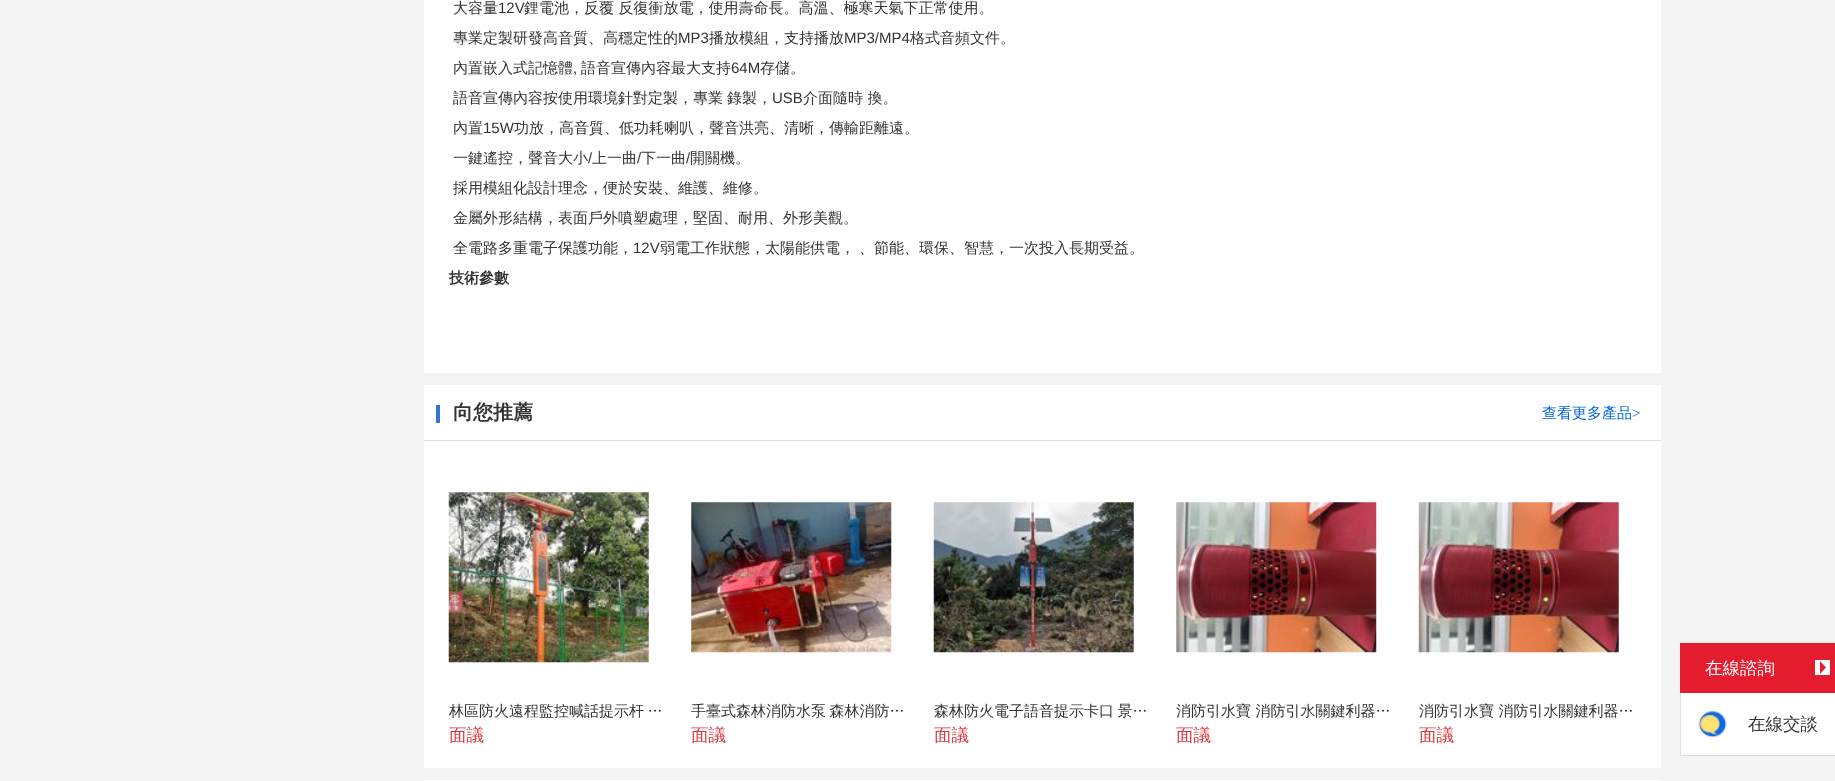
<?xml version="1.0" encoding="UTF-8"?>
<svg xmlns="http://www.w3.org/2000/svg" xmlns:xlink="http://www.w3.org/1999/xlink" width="1835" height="781">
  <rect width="100%" height="100%" fill="#f4f4f4" />
  <rect x="424" width="1237" height="373" fill="#ffffff" />
  <rect x="424" y="385" width="1237" height="383" fill="#ffffff" />
  <rect x="424" y="440" width="1237" height="1" fill="#e0e0e0" />
  <rect x="436" y="405" width="4" height="18" fill="#2f78ca" />
  <image x="448" y="492" width="201" height="171" xlink:href="image1.png" />
  <image x="691" y="502" width="201" height="151" xlink:href="image2.png" />
  <image x="933" y="502" width="201" height="151" xlink:href="image3.png" />
  <image x="1176" y="502" width="201" height="151" xlink:href="image4.png" />
  <image x="1418" y="502" width="201" height="151" xlink:href="image5.png" />
  <rect x="424" y="780" width="1237" height="1" fill="#ffffff" />
  <rect x="1680" y="643" width="155" height="50" fill="#e41c2e" />
  <rect x="1815" y="660" width="15" height="15" fill="#ffffff" />
  <path d="M 1820 674 v -13 l 6 6.5 z" fill="#e41c2e" />
  <rect x="1681" y="693" width="154" height="62" fill="#ffffff" />
  <rect x="1680" y="755" width="155" height="1" fill="#e0e0e0" />
  <rect x="1680" y="693" width="1" height="63" fill="#e0e0e0" />
  <image x="1698" y="711" width="29" height="27" xlink:href="image6.png" />
  <text x="453" y="13" style="font-family: WenQuanYi Zen Hei; font-size: 15px; font-weight: 500; fill: #333333">大容量</text>
  <text x="498" y="13" style="font-family: Liberation Sans; font-size: 15px; fill: #333333">12V</text>
  <text x="524" y="13" style="font-family: WenQuanYi Zen Hei; font-size: 15px; font-weight: 500; fill: #333333">鋰電池，反覆 反復衝放電，使用壽命長。高溫、極寒天氣下正常使用。</text>
  <text x="453" y="43" style="font-family: WenQuanYi Zen Hei; font-size: 15px; font-weight: 500; fill: #333333">專業定製研發高音質、高穩定性的</text>
  <text x="678" y="43" style="font-family: Liberation Sans; font-size: 15px; fill: #333333">MP3</text>
  <text x="709" y="43" style="font-family: WenQuanYi Zen Hei; font-size: 15px; font-weight: 500; fill: #333333">播放模組，支持播放</text>
  <text x="844" y="43" style="font-family: Liberation Sans; font-size: 15px; fill: #333333">MP3/MP4</text>
  <text x="910" y="43" style="font-family: WenQuanYi Zen Hei; font-size: 15px; font-weight: 500; fill: #333333">格式音頻文件。</text>
  <text x="453" y="73" style="font-family: WenQuanYi Zen Hei; font-size: 15px; font-weight: 500; fill: #333333">內置嵌入式記憶體</text>
  <text x="573" y="73" style="font-family: Liberation Sans; font-size: 15px; fill: #333333">,</text>
  <text x="581" y="73" style="font-family: WenQuanYi Zen Hei; font-size: 15px; font-weight: 500; fill: #333333">語音宣傳內容最大支持</text>
  <text x="731" y="73" style="font-family: Liberation Sans; font-size: 15px; fill: #333333">64M</text>
  <text x="760" y="73" style="font-family: WenQuanYi Zen Hei; font-size: 15px; font-weight: 500; fill: #333333">存儲。</text>
  <text x="453" y="103" style="font-family: WenQuanYi Zen Hei; font-size: 15px; font-weight: 500; fill: #333333">語音宣傳內容按使用環境針對定製，專業</text>
  <text x="727" y="103" style="font-family: WenQuanYi Zen Hei; font-size: 15px; font-weight: 500; fill: #333333">錄製，</text>
  <text x="772" y="103" style="font-family: Liberation Sans; font-size: 15px; fill: #333333">USB</text>
  <text x="803" y="103" style="font-family: WenQuanYi Zen Hei; font-size: 15px; font-weight: 500; fill: #333333">介面隨時 換。</text>
  <text x="453" y="133" style="font-family: WenQuanYi Zen Hei; font-size: 15px; font-weight: 500; fill: #333333">內置</text>
  <text x="483" y="133" style="font-family: Liberation Sans; font-size: 15px; fill: #333333">15W</text>
  <text x="514" y="133" style="font-family: WenQuanYi Zen Hei; font-size: 15px; font-weight: 500; fill: #333333">功放，高音質、低功耗喇叭，聲音洪亮、清晰，傳輸距離遠。</text>
  <text x="453" y="163" style="font-family: WenQuanYi Zen Hei; font-size: 15px; font-weight: 500; fill: #333333">一鍵遙控，聲音大小</text>
  <text x="588" y="163" style="font-family: Liberation Sans; font-size: 15px; fill: #333333">/</text>
  <text x="592" y="163" style="font-family: WenQuanYi Zen Hei; font-size: 15px; font-weight: 500; fill: #333333">上一曲</text>
  <text x="637" y="163" style="font-family: Liberation Sans; font-size: 15px; fill: #333333">/</text>
  <text x="641" y="163" style="font-family: WenQuanYi Zen Hei; font-size: 15px; font-weight: 500; fill: #333333">下一曲</text>
  <text x="686" y="163" style="font-family: Liberation Sans; font-size: 15px; fill: #333333">/</text>
  <text x="690" y="163" style="font-family: WenQuanYi Zen Hei; font-size: 15px; font-weight: 500; fill: #333333">開關機。</text>
  <text x="453" y="193" style="font-family: WenQuanYi Zen Hei; font-size: 15px; font-weight: 500; fill: #333333">採用模組化設計理念，便於安裝、維護、維修。</text>
  <text x="453" y="223" style="font-family: WenQuanYi Zen Hei; font-size: 15px; font-weight: 500; fill: #333333">金屬外形結構，表面戶外噴塑處理，堅固、耐用、外形美觀。</text>
  <text x="453" y="253" style="font-family: WenQuanYi Zen Hei; font-size: 15px; font-weight: 500; fill: #333333">全電路多重電子保護功能，</text>
  <text x="633" y="253" style="font-family: Liberation Sans; font-size: 15px; fill: #333333">12V</text>
  <text x="660" y="253" style="font-family: WenQuanYi Zen Hei; font-size: 15px; font-weight: 500; fill: #333333">弱電工作狀態，太陽能供電，</text>
  <text x="859" y="253" style="font-family: WenQuanYi Zen Hei; font-size: 15px; font-weight: 500; fill: #333333">、節能、環保、智慧，一次投入長期受益。</text>
  <text x="449" y="283" style="font-family: WenQuanYi Zen Hei; font-size: 15px; font-weight: bold; fill: #333333">技術參數</text>
  <text x="453" y="419" style="font-family: WenQuanYi Zen Hei; font-size: 20px; font-weight: bold; fill: #333333">向您推薦</text>
  <text x="1542" y="418" style="font-family: WenQuanYi Zen Hei; font-size: 15px; font-weight: 500; fill: #0066dd">查看更多產品</text>
  <text x="1632" y="418" style="font-family: Liberation Serif; font-size: 15px; fill: #0066dd">&gt;</text>
  <text x="449" y="716" word-spacing="-1" style="font-family: WenQuanYi Zen Hei; font-size: 15px; font-weight: 500; fill: #333333">林區防火遠程監控喊話提示杆 …</text>
  <text x="449" y="741" style="font-family: WenQuanYi Zen Hei; font-size: 17.5px; font-weight: 500; fill: #d9363c">面議</text>
  <text x="691" y="716" word-spacing="-1" style="font-family: WenQuanYi Zen Hei; font-size: 15px; font-weight: 500; fill: #333333">手臺式森林消防水泵 森林消防…</text>
  <text x="691" y="741" style="font-family: WenQuanYi Zen Hei; font-size: 17.5px; font-weight: 500; fill: #d9363c">面議</text>
  <text x="934" y="716" word-spacing="-1" style="font-family: WenQuanYi Zen Hei; font-size: 15px; font-weight: 500; fill: #333333">森林防火電子語音提示卡口 景…</text>
  <text x="934" y="741" style="font-family: WenQuanYi Zen Hei; font-size: 17.5px; font-weight: 500; fill: #d9363c">面議</text>
  <text x="1176" y="716" style="font-family: WenQuanYi Zen Hei; font-size: 15px; font-weight: 500; fill: #333333">消防引水寶 消防引水關鍵利器…</text>
  <text x="1176" y="741" style="font-family: WenQuanYi Zen Hei; font-size: 17.5px; font-weight: 500; fill: #d9363c">面議</text>
  <text x="1419" y="716" style="font-family: WenQuanYi Zen Hei; font-size: 15px; font-weight: 500; fill: #333333">消防引水寶 消防引水關鍵利器…</text>
  <text x="1419" y="741" style="font-family: WenQuanYi Zen Hei; font-size: 17.5px; font-weight: 500; fill: #d9363c">面議</text>
  <text x="1705" y="674" style="font-family: WenQuanYi Zen Hei; font-size: 17.5px; font-weight: 500; fill: #ffffff">在線諮詢</text>
  <text x="1748" y="730" style="font-family: WenQuanYi Zen Hei; font-size: 17.5px; font-weight: 500; fill: #333333">在線交談</text>
</svg>
